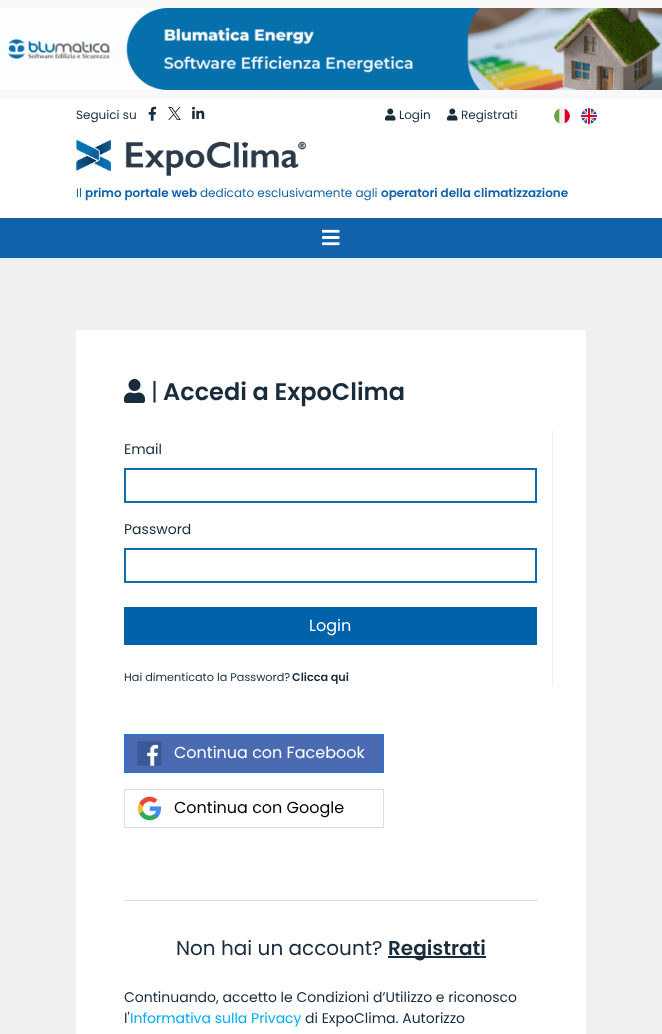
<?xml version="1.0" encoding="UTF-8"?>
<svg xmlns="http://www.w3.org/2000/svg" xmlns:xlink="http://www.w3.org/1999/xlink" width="662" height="1034">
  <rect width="100%" height="100%" fill="#ffffff" />
  <rect width="662" height="98" fill="#f8f8f8" />
  <image x="0" y="8" width="662" height="82" xlink:href="image1.png" />
  <image x="148" y="106" width="9" height="15" xlink:href="image2.png" />
  <image x="168" y="107" width="13" height="13" xlink:href="image3.png" />
  <image x="192" y="106" width="13" height="13" xlink:href="image4.png" />
  <image x="385" y="108" width="11" height="13" xlink:href="image5.png" />
  <image x="447" y="108" width="11" height="13" xlink:href="image5.png" />
  <image x="554" y="108" width="16" height="16" xlink:href="image6.png" />
  <image x="581" y="108" width="16" height="16" xlink:href="image7.png" />
  <image x="76" y="140" width="230" height="36" xlink:href="image8.png" />
  <rect y="218" width="662" height="40" fill="#1162ab" />
  <image x="322" y="229" width="18" height="17" xlink:href="image9.png" />
  <rect y="258" width="662" height="776" fill="#f0f0f0" />
  <rect x="76" y="330" width="510" height="704" fill="#ffffff" />
  <image x="124" y="379" width="21" height="24" xlink:href="image10.png" />
  <rect x="552" y="431" width="1" height="255" fill="#eeeeee" />
  <rect x="125" y="469" width="411" height="33" fill="none" stroke="#106cb1" stroke-width="2" />
  <rect x="125" y="549" width="411" height="33" fill="none" stroke="#106cb1" stroke-width="2" />
  <rect x="124" y="607" width="413" height="38" fill="#0062ab" />
  <rect x="124.5" y="734.5" width="259" height="38" fill="#4a6bb2" stroke="#1773ea" />
  <image x="137" y="741" width="25" height="25" xlink:href="image11.png" />
  <rect x="124.5" y="789.5" width="259" height="38" fill="none" stroke="#dddddd" />
  <image x="137" y="796" width="25" height="25" xlink:href="image12.png" />
  <rect x="124" y="900" width="414" height="1" fill="#dedede" />
  <rect x="388" y="956" width="98" height="2" fill="#182c3c" />
  <text x="76" y="119" style="font-family: Poppins; font-size: 12px; fill: #182c3c">Seguici su</text>
  <text x="399" y="119" style="font-family: Poppins; font-size: 12px; fill: #182c3c">Login</text>
  <text x="461" y="119" style="font-family: Poppins; font-size: 12px; fill: #182c3c">Registrati</text>
  <text x="76" y="197" style="font-family: Poppins; font-size: 12px; fill: #1162ab">Il</text>
  <text x="85" y="197" style="font-family: Poppins; font-size: 12px; font-weight: 600; fill: #1162ab">primo portale web</text>
  <text x="200" y="197" style="font-family: Poppins; font-size: 12px; fill: #1162ab">dedicato esclusivamente agli</text>
  <text x="381" y="197" style="font-family: Poppins; font-size: 12px; font-weight: 600; fill: #1162ab">operatori della climatizzazione</text>
  <text x="151" y="400" style="font-family: Poppins; font-size: 24px; fill: #182c3c">|</text>
  <text x="163" y="400" style="font-family: Poppins; font-size: 24px; font-weight: 600; fill: #182c3c">Accedi a ExpoClima</text>
  <text x="124" y="454" style="font-family: Poppins; font-size: 14px; fill: #182c3c">Email</text>
  <text x="124" y="534" style="font-family: Poppins; font-size: 14px; fill: #182c3c">Password</text>
  <text x="309" y="631" style="font-family: Poppins; font-size: 16px; fill: #ffffff">Login</text>
  <text x="124" y="681" style="font-family: Poppins; font-size: 11.25px; fill: #182c3c">Hai dimenticato la Password?</text>
  <text x="292" y="681" style="font-family: Poppins; font-size: 11.25px; font-weight: 600; fill: #182c3c">Clicca qui</text>
  <text x="174" y="758" style="font-family: Poppins; font-size: 16px; fill: #ffffff">Continua con Facebook</text>
  <text x="174" y="813" style="font-family: Poppins; font-size: 16px; fill: #000000">Continua con Google</text>
  <text x="176" y="955" style="font-family: Poppins; font-size: 20px; fill: #182c3c">Non hai un account?</text>
  <text x="388" y="955" style="font-family: Poppins; font-size: 20px; font-weight: 600; fill: #182c3c">Registrati</text>
  <text x="124" y="1002" style="font-family: Poppins; font-size: 14px; fill: #182c3c">Continuando, accetto le Condizioni d’Utilizzo e riconosco</text>
  <text x="124" y="1023" style="font-family: Poppins; font-size: 14px; fill: #182c3c">l'</text>
  <text x="130" y="1023" style="font-family: Poppins; font-size: 14px; fill: #00adfa">Informativa sulla Privacy</text>
  <text x="305" y="1023" style="font-family: Poppins; font-size: 14px; fill: #182c3c">di ExpoClima. Autorizzo</text>
</svg>
